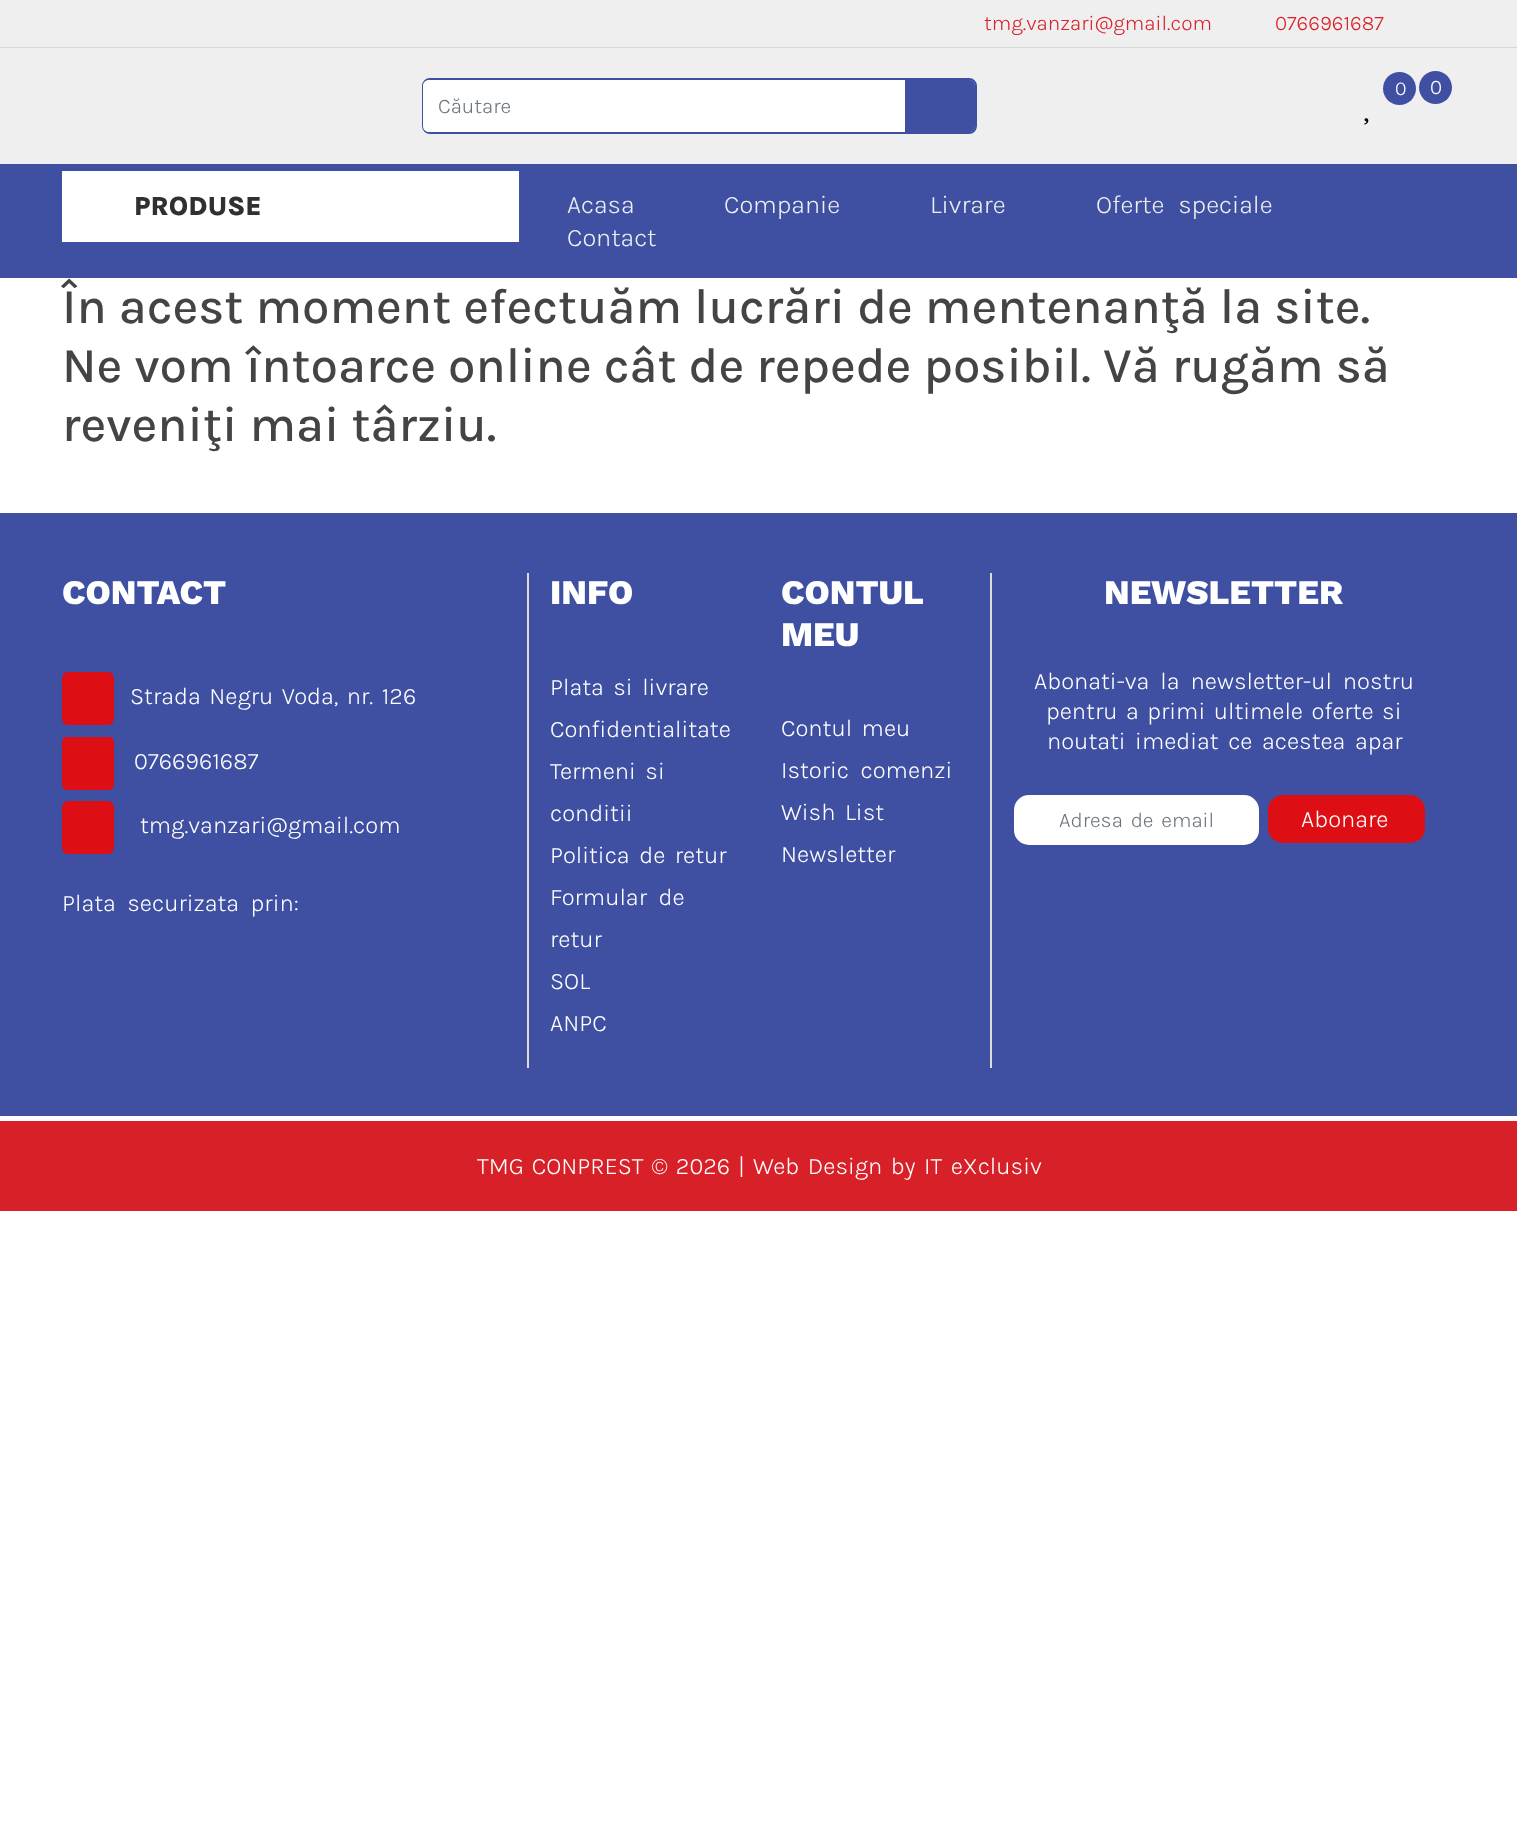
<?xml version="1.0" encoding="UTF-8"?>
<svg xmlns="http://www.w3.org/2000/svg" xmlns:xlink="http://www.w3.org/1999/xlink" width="1517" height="1839">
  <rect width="100%" height="100%" fill="#ffffff" />
  <rect width="1517" height="47" fill="#efefef" />
  <rect y="47" width="1517" height="1" fill="#d7d7d7" />
  <rect y="48" width="1517" height="116" fill="#efefef" />
  <circle cx="1399.5" cy="88.5" r="16.5" fill="#3f50a2" />
  <image x="1364" y="118" width="5" height="7" xlink:href="image1.png" />
  <circle cx="1435.5" cy="87.5" r="16.5" fill="#3f50a2" />
  <rect x="423" y="79" width="553" height="54" rx="7" fill="none" stroke="#3f50a2" stroke-width="2" />
  <path d="M 429 80 h 476 v 52 h -476 c -3.5 0 -6 -2.5 -6 -6 v -40 c 0 -3.5 2.5 -6 6 -6 z" fill="#ffffff" />
  <path d="M 905 80 h 64 c 3.5 0 6 2.5 6 6 v 40 c 0 3.5 -2.5 6 -6 6 h -64 z" fill="#3f50a2" />
  <rect y="164" width="1517" height="114" fill="#3f50a2" />
  <rect x="62" y="171" width="457" height="71" fill="#ffffff" />
  <rect y="513" width="1517" height="603" fill="#3f50a2" />
  <rect x="62" y="672" width="52" height="53" rx="6" fill="#de0e15" />
  <path d="M 109 737 h -42 c -3 0 -5 2 -5 5 v 42 c 0 3 2 6 5 6 h 42 c 3 0 5 -3 5 -6 v -42 c 0 -3 -2 -5 -5 -5 z" fill="#de0e15" />
  <rect x="62" y="801" width="52" height="53" rx="6" fill="#de0e15" />
  <rect x="527" y="573" width="2" height="495" fill="#dddddd" />
  <rect x="990" y="573" width="2" height="495" fill="#dddddd" />
  <rect x="1014" y="795" width="245" height="50" rx="15" fill="#ffffff" />
  <rect x="1268" y="795" width="157" height="48" rx="15" fill="#de0e15" />
  <rect y="1121" width="1517" height="90" fill="#d82028" />
  <text x="984" y="30" style="font-family: Karla; font-size: 21px; font-weight: 300; fill: #d82028">tmg.vanzari@gmail.com</text>
  <text x="1275" y="30" style="font-family: Karla; font-size: 21px; font-weight: 300; fill: #d82028">0766961687</text>
  <text x="1395" y="95" style="font-family: Karla; font-size: 20px; font-weight: 300; letter-spacing: -2px; fill: #ffffff">0</text>
  <text x="1430" y="94" style="font-family: Karla; font-size: 21px; font-weight: 300; fill: #ffffff">0</text>
  <text x="438" y="113" style="font-family: Karla; font-size: 21px; font-weight: 300; fill: #6c757d">Căutare</text>
  <text x="134" y="215" style="font-family: Karla; font-size: 27px; font-weight: 800; fill: #303030">PRODUSE</text>
  <text x="567" y="213" style="font-family: Karla; font-size: 25.5px; font-weight: 300; fill: #efefef">Acasa</text>
  <text x="724" y="213" style="font-family: Karla; font-size: 25.5px; font-weight: 300; fill: #efefef">Companie</text>
  <text x="930" y="213" style="font-family: Karla; font-size: 25.5px; font-weight: 300; fill: #efefef">Livrare</text>
  <text x="1096" y="213" word-spacing="8" style="font-family: Karla; font-size: 25.5px; font-weight: 300; fill: #efefef">Oferte speciale</text>
  <text x="567" y="246" style="font-family: Karla; font-size: 25.5px; font-weight: 300; fill: #efefef">Contact</text>
  <text x="62" y="323" style="font-family: Karla; font-size: 49.5px; font-weight: 500; fill: #444444">În acest moment efectuăm lucrări de mentenanţă la site.</text>
  <text x="62" y="382" style="font-family: Karla; font-size: 49.5px; font-weight: 500; fill: #444444">Ne vom întoarce online cât de repede posibil. Vă rugăm să</text>
  <text x="62" y="441" style="font-family: Karla; font-size: 49.5px; font-weight: 500; fill: #444444">reveniţi mai târziu.</text>
  <text x="62" y="604" style="font-family: Work Sans; font-size: 34.5px; font-weight: 800; fill: #ffffff">CONTACT</text>
  <text x="130" y="704" word-spacing="3" style="font-family: Karla; font-size: 24px; font-weight: 300; fill: #ffffff">Strada Negru Voda, nr. 126</text>
  <text x="134" y="769" style="font-family: Karla; font-size: 24px; font-weight: 300; fill: #ffffff">0766961687</text>
  <text x="140" y="833" style="font-family: Karla; font-size: 24px; font-weight: 300; fill: #ffffff">tmg.vanzari@gmail.com</text>
  <text x="62" y="911" word-spacing="6" style="font-family: Karla; font-size: 24px; font-weight: 300; fill: #ffffff">Plata securizata prin:</text>
  <text x="550" y="604" style="font-family: Work Sans; font-size: 34.5px; font-weight: 800; fill: #ffffff">INFO</text>
  <text x="550" y="695" word-spacing="4" style="font-family: Karla; font-size: 24px; font-weight: 300; fill: #ffffff">Plata si livrare</text>
  <text x="550" y="737" style="font-family: Karla; font-size: 24px; font-weight: 300; fill: #ffffff">Confidentialitate</text>
  <text x="550" y="779" word-spacing="4" style="font-family: Karla; font-size: 24px; font-weight: 300; fill: #ffffff">Termeni si</text>
  <text x="550" y="821" style="font-family: Karla; font-size: 24px; font-weight: 300; fill: #ffffff">conditii</text>
  <text x="550" y="863" word-spacing="4" style="font-family: Karla; font-size: 24px; font-weight: 300; fill: #ffffff">Politica de retur</text>
  <text x="550" y="905" word-spacing="6" style="font-family: Karla; font-size: 24px; font-weight: 300; fill: #ffffff">Formular de</text>
  <text x="550" y="947" style="font-family: Karla; font-size: 24px; font-weight: 300; fill: #ffffff">retur</text>
  <text x="550" y="989" style="font-family: Karla; font-size: 24px; font-weight: 300; fill: #ffffff">SOL</text>
  <text x="550" y="1031" style="font-family: Karla; font-size: 24px; font-weight: 300; fill: #ffffff">ANPC</text>
  <text x="781" y="604" style="font-family: Work Sans; font-size: 34.5px; font-weight: 800; fill: #ffffff">CONTUL</text>
  <text x="781" y="646" style="font-family: Work Sans; font-size: 34.5px; font-weight: 800; fill: #ffffff">MEU</text>
  <text x="781" y="736" word-spacing="4" style="font-family: Karla; font-size: 24px; font-weight: 300; fill: #ffffff">Contul meu</text>
  <text x="781" y="778" word-spacing="6" style="font-family: Karla; font-size: 24px; font-weight: 300; fill: #ffffff">Istoric comenzi</text>
  <text x="781" y="820" word-spacing="4" style="font-family: Karla; font-size: 24px; font-weight: 300; fill: #ffffff">Wish List</text>
  <text x="781" y="862" style="font-family: Karla; font-size: 24px; font-weight: 300; fill: #ffffff">Newsletter</text>
  <text x="1104" y="604" style="font-family: Work Sans; font-size: 34.5px; font-weight: 800; fill: #ffffff">NEWSLETTER</text>
  <text x="1034" y="689" word-spacing="5.5" style="font-family: Karla; font-size: 24px; font-weight: 300; fill: #ffffff">Abonati-va la newsletter-ul nostru</text>
  <text x="1046" y="719" word-spacing="3" style="font-family: Karla; font-size: 24px; font-weight: 300; fill: #ffffff">pentru a primi ultimele oferte si</text>
  <text x="1047" y="749" word-spacing="4" style="font-family: Karla; font-size: 24px; font-weight: 300; fill: #ffffff">noutati imediat ce acestea apar</text>
  <text x="1059" y="827" word-spacing="3" style="font-family: Karla; font-size: 21px; font-weight: 300; fill: #6c757d">Adresa de email</text>
  <text x="1301" y="827" style="font-family: Karla; font-size: 24px; font-weight: 300; fill: #ffffff">Abonare</text>
  <text x="477" y="1174" word-spacing="2.5" style="font-family: Karla; font-size: 24px; font-weight: 300; fill: #ffffff">TMG CONPREST © 2026 |</text>
  <text x="753" y="1174" word-spacing="3" style="font-family: Karla; font-size: 24px; font-weight: 300; fill: #ffffff">Web Design by IT eXclusiv</text>
</svg>
